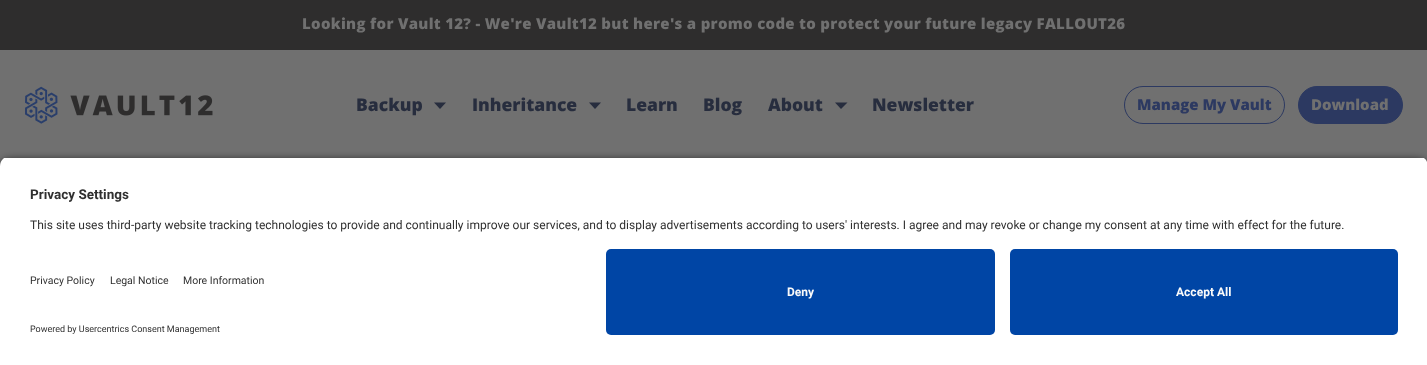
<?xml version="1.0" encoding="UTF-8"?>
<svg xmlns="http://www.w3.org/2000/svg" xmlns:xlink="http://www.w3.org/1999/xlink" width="1427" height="365">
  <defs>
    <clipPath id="clip1"><path d="M 10 156 h 1408 c 5.5 0 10 4.5 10 10 v 73 h -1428 v -73 c 0 -5.5 4.5 -10 10 -10 z" /></clipPath>
  </defs>
  <rect width="100%" height="100%" fill="#707070" />
  <rect y="161" width="1427" height="1" fill="#6b6b6b" />
  <rect width="1427" height="50" fill="#2e2d2d" />
  <image x="25" y="86" width="188" height="38" xlink:href="image1.png" />
  <path d="M 434 102.5 h 12 l -6 6.5 z" fill="#272d3e" />
  <path d="M 589 102.5 h 12 l -6 6.5 z" fill="#272d3e" />
  <path d="M 835 102.5 h 12.5 l -6.5 6.5 z" fill="#272d3e" />
  <rect x="1124.5" y="86.5" width="160" height="37" rx="18.5" fill="none" stroke="#2c3961" />
  <rect x="1298.5" y="86.5" width="104" height="37" rx="18.5" fill="#2c3961" stroke="#2c3961" />
  <rect y="160" width="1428" height="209" rx="10" fill="#000000" fill-opacity="0.8" filter="blur(4.5px)" />
  <g clip-path="url(#clip1)">
    <rect y="158" width="1427" height="81" fill="#ffffff" />
  </g>
  <rect y="239" width="1427" height="126" fill="#ffffff" />
  <rect x="606" y="249" width="389" height="86" rx="5" fill="#0045a5" />
  <rect x="1010" y="249" width="388" height="86" rx="5" fill="#0045a5" />
  <text x="302" y="29" style="font-family: Open Sans; font-size: 15px; font-weight: 800; letter-spacing: 0.3px; fill: #707070">Looking for Vault 12? - We're Vault12 but here's a promo code to protect your future legacy FALLOUT26</text>
  <text x="356" y="111" style="font-family: Open Sans; font-size: 17.5px; font-weight: 800; fill: #272d3e">Backup</text>
  <text x="472" y="111" style="font-family: Open Sans; font-size: 17.5px; font-weight: 800; fill: #272d3e">Inheritance</text>
  <text x="626" y="111" style="font-family: Open Sans; font-size: 17.5px; font-weight: 800; fill: #272d3e">Learn</text>
  <text x="703" y="111" style="font-family: Open Sans; font-size: 17.5px; font-weight: 800; fill: #272d3e">Blog</text>
  <text x="768" y="111" style="font-family: Open Sans; font-size: 17.5px; font-weight: 800; fill: #272d3e">About</text>
  <text x="872" y="111" style="font-family: Open Sans; font-size: 17.5px; font-weight: 800; fill: #272d3e">Newsletter</text>
  <text x="1137" y="110" style="font-family: Open Sans; font-size: 15px; font-weight: 800; fill: #2c3961">Manage My Vault</text>
  <text x="1311" y="110" style="font-family: Open Sans; font-size: 15px; font-weight: 800; fill: #707070">Download</text>
  <text x="30" y="199" style="font-family: Roboto; font-size: 13.5px; font-weight: bold; fill: #303030">Privacy Settings</text>
  <text x="30" y="229" style="font-family: Roboto; font-size: 12.03px; fill: #303030">This site uses third-party website tracking technologies to provide and continually improve our services, and to display advertisements according to users' interests. I agree and may revoke or change my consent at any time with effect for the future.</text>
  <text x="30" y="284" style="font-family: Roboto; font-size: 10.5px; fill: #303030">Privacy Policy</text>
  <text x="110" y="284" style="font-family: Roboto; font-size: 10.5px; fill: #303030">Legal Notice</text>
  <text x="183" y="284" style="font-family: Roboto; font-size: 10.5px; fill: #303030">More Information</text>
  <text x="30" y="332" style="font-family: Roboto; font-size: 9px; fill: #303030">Powered by Usercentrics Consent Management</text>
  <text x="787" y="296" style="font-family: Roboto; font-size: 12.03px; font-weight: bold; fill: #fafafa">Deny</text>
  <text x="1176" y="296" style="font-family: Roboto; font-size: 12.03px; font-weight: bold; fill: #fafafa">Accept All</text>
</svg>
